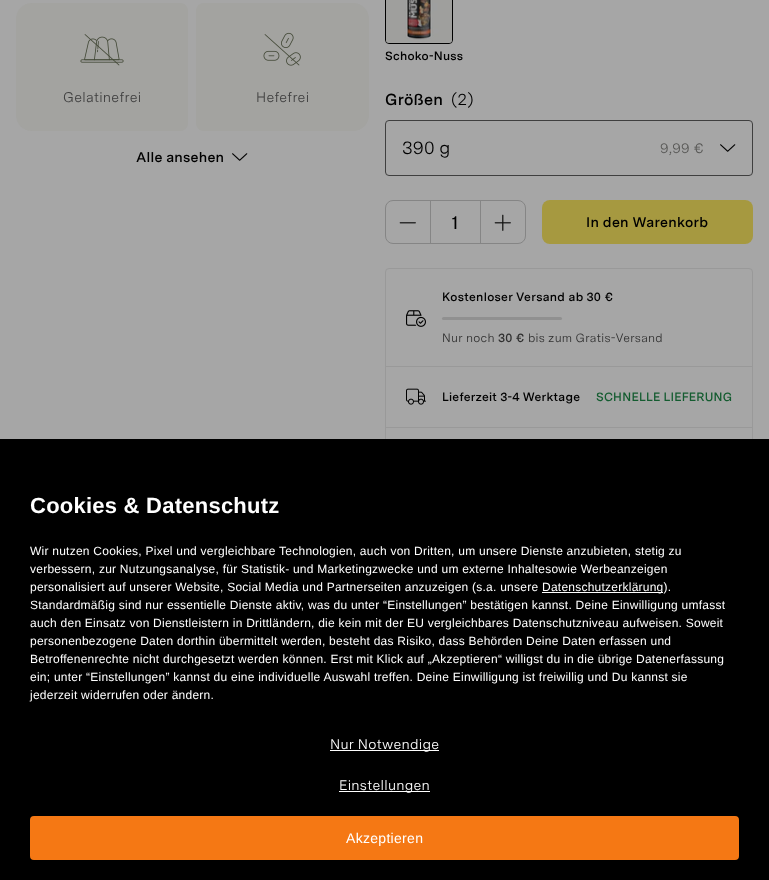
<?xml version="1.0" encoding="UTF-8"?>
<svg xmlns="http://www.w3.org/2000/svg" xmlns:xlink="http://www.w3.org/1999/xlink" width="769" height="880">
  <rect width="100%" height="100%" fill="#a6a6a6" />
  <path d="M 32 3 h 148 c 4.5 0 8 3.5 8 8 v 112 c 0 4.5 -3.5 8 -8 8 h -148 c -9 0 -16 -7 -16 -16 v -96 c 0 -9 7 -16 16 -16 z" fill="#a3a3a0" />
  <image x="80" y="34" width="44" height="32" xlink:href="image1.png" />
  <path d="M 204 3 h 149 c 9 0 16 7 16 16 v 96 c 0 9 -7 16 -16 16 h -149 c -4.5 0 -8 -3.5 -8 -8 v -112 c 0 -4.5 3.5 -8 8 -8 z" fill="#a3a3a0" />
  <image x="263" y="32" width="38" height="34" xlink:href="image2.png" />
  <image x="232" y="153" width="16" height="8" xlink:href="image3.png" />
  <rect x="385.5" y="-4.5" width="67" height="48" rx="3.5" fill="none" stroke="#000000" />
  <image x="386" y="0" width="66" height="43" xlink:href="image4.png" />
  <rect x="385.5" y="120.5" width="367" height="55" rx="3.5" fill="none" stroke="#3f3f3f" />
  <image x="720" y="144" width="16" height="8" xlink:href="image3.png" />
  <rect x="385.5" y="200.5" width="140" height="43" rx="7.5" fill="none" stroke="#858585" />
  <image x="399" y="222" width="17" height="2" xlink:href="image5.png" />
  <rect x="430" y="201" width="1" height="42" fill="#858585" />
  <rect x="480" y="201" width="1" height="42" fill="#858585" />
  <image x="494" y="214" width="17" height="17" xlink:href="image6.png" />
  <rect x="542" y="200" width="211" height="44" rx="8" fill="#a69940" />
  <rect x="385.5" y="268.5" width="367" height="283" rx="3.5" fill="none" stroke="#999999" />
  <rect x="386" y="366" width="366" height="1" fill="#999999" />
  <image x="406" y="310" width="20" height="17" xlink:href="image7.png" />
  <rect x="442" y="317" width="120" height="3" rx="1.5" fill="#909090" />
  <rect x="386" y="427" width="366" height="1" fill="#999999" />
  <image x="406" y="388" width="20" height="17" xlink:href="image8.png" />
  <rect y="439" width="769" height="441" fill="#000000" />
  <rect x="542" y="592" width="121" height="1" fill="#ffffff" />
  <rect x="330" y="750" width="109" height="1" fill="#ffffff" />
  <rect x="339" y="791" width="91" height="1" fill="#ffffff" />
  <rect x="31" y="817" width="707" height="42" rx="3" fill="#f57814" stroke="#f57814" stroke-width="2" />
  <text x="63" y="102" style="font-family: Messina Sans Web; font-size: 14px; letter-spacing: 0.24px; fill: #3f3f3f">Gelatinefrei</text>
  <text x="256" y="102" style="font-family: Messina Sans Web; font-size: 14px; letter-spacing: 0.24px; fill: #3f3f3f">Hefefrei</text>
  <text x="136" y="162" style="font-family: Messina Sans Web; font-size: 14px; font-weight: 600; letter-spacing: 0.24px; fill: #000000">Alle ansehen</text>
  <text x="385" y="60" style="font-family: Messina Sans Web; font-size: 12px; font-weight: 600; letter-spacing: 0.24px; fill: #000000">Schoko-Nuss</text>
  <text x="385" y="105" style="font-family: Messina Sans Web; font-size: 16px; font-weight: 600; letter-spacing: 0.24px; fill: #000000">Größen</text>
  <text x="451" y="105" style="font-family: Messina Sans Web; font-size: 16px; letter-spacing: 0.24px; fill: #000000">(2)</text>
  <text x="402" y="154" style="font-family: Messina Sans Web; font-size: 18px; letter-spacing: 0.24px; fill: #000000">390 g</text>
  <text x="660" y="153" style="font-family: Messina Sans Web; font-size: 14px; letter-spacing: 0.24px; fill: #555553">9,99 €</text>
  <text x="452" y="229" style="font-family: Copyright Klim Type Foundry; font-size: 20px; fill: #000000">1</text>
  <text x="586" y="227" style="font-family: Messina Sans Web; font-size: 14px; font-weight: 600; letter-spacing: 0.3px; fill: #000000">In den Warenkorb</text>
  <text x="442" y="301" style="font-family: Messina Sans Web; font-size: 12px; font-weight: 600; letter-spacing: 0.3px; fill: #000000">Kostenloser Versand ab 30 €</text>
  <text x="442" y="342" style="font-family: Messina Sans Web; font-size: 12px; letter-spacing: 0.24px; fill: #2f2f2f">Nur noch</text>
  <text x="498" y="342" style="font-family: Messina Sans Web; font-size: 12px; font-weight: 600; letter-spacing: 0.24px; fill: #2f2f2f">30 €</text>
  <text x="528" y="342" style="font-family: Messina Sans Web; font-size: 12px; letter-spacing: 0.24px; fill: #2f2f2f">bis zum Gratis-Versand</text>
  <text x="442" y="401" style="font-family: Messina Sans Web; font-size: 12px; font-weight: 600; letter-spacing: 0.24px; fill: #000000">Lieferzeit 3-4 Werktage</text>
  <text x="596" y="401" style="font-family: Messina Sans Web; font-size: 12px; font-weight: 600; letter-spacing: 0.24px; fill: #145c30">SCHNELLE LIEFERUNG</text>
  <text x="30" y="513" style="font-family: Liberation Sans; font-size: 22px; font-weight: bold; letter-spacing: 0.24px; fill: #ffffff">Cookies &amp; Datenschutz</text>
  <text x="30" y="555" style="font-family: Liberation Sans; font-size: 12px; letter-spacing: 0.24px; fill: #ffffff">Wir nutzen Cookies, Pixel und vergleichbare Technologien, auch von Dritten, um unsere Dienste anzubieten, stetig zu</text>
  <text x="30" y="573" style="font-family: Liberation Sans; font-size: 12px; letter-spacing: 0.24px; fill: #ffffff">verbessern, zur Nutzungsanalyse, für Statistik- und Marketingzwecke und um externe Inhaltesowie Werbeanzeigen</text>
  <text x="30" y="591" style="font-family: Liberation Sans; font-size: 12px; letter-spacing: 0.24px; fill: #ffffff">personalisiert auf unserer Website, Social Media und Partnerseiten anzuzeigen (s.a. unsere</text>
  <text x="542" y="591" style="font-family: Liberation Sans; font-size: 12px; letter-spacing: 0.24px; fill: #ffffff">Datenschutzerklärung).</text>
  <text x="30" y="609" style="font-family: Liberation Sans; font-size: 12px; letter-spacing: 0.24px; fill: #ffffff">Standardmäßig sind nur essentielle Dienste aktiv, was du unter “Einstellungen” bestätigen kannst. Deine Einwilligung umfasst</text>
  <text x="30" y="627" style="font-family: Liberation Sans; font-size: 12px; letter-spacing: 0.24px; fill: #ffffff">auch den Einsatz von Dienstleistern in Drittländern, die kein mit der EU vergleichbares Datenschutzniveau aufweisen. Soweit</text>
  <text x="30" y="645" style="font-family: Liberation Sans; font-size: 12px; letter-spacing: 0.24px; fill: #ffffff">personenbezogene Daten dorthin übermittelt werden, besteht das Risiko, dass Behörden Deine Daten erfassen und</text>
  <text x="30" y="663" style="font-family: Liberation Sans; font-size: 12px; letter-spacing: 0.24px; fill: #ffffff">Betroffenenrechte nicht durchgesetzt werden können. Erst mit Klick auf „Akzeptieren“ willigst du in die übrige Datenerfassung</text>
  <text x="30" y="681" style="font-family: Liberation Sans; font-size: 12px; letter-spacing: 0.24px; fill: #ffffff">ein; unter “Einstellungen” kannst du eine individuelle Auswahl treffen. Deine Einwilligung ist freiwillig und Du kannst sie</text>
  <text x="30" y="699" style="font-family: Liberation Sans; font-size: 12px; letter-spacing: 0.24px; fill: #ffffff">jederzeit widerrufen oder ändern.</text>
  <text x="330" y="749" style="font-family: Messina Sans Web; font-size: 14px; letter-spacing: 0.24px; fill: #ffffff">Nur Notwendige</text>
  <text x="339" y="790" style="font-family: Messina Sans Web; font-size: 14px; letter-spacing: 0.24px; fill: #ffffff">Einstellungen</text>
  <text x="346" y="843" style="font-family: Liberation Sans; font-size: 14px; letter-spacing: 0.3px; fill: #ffffff">Akzeptieren</text>
</svg>
